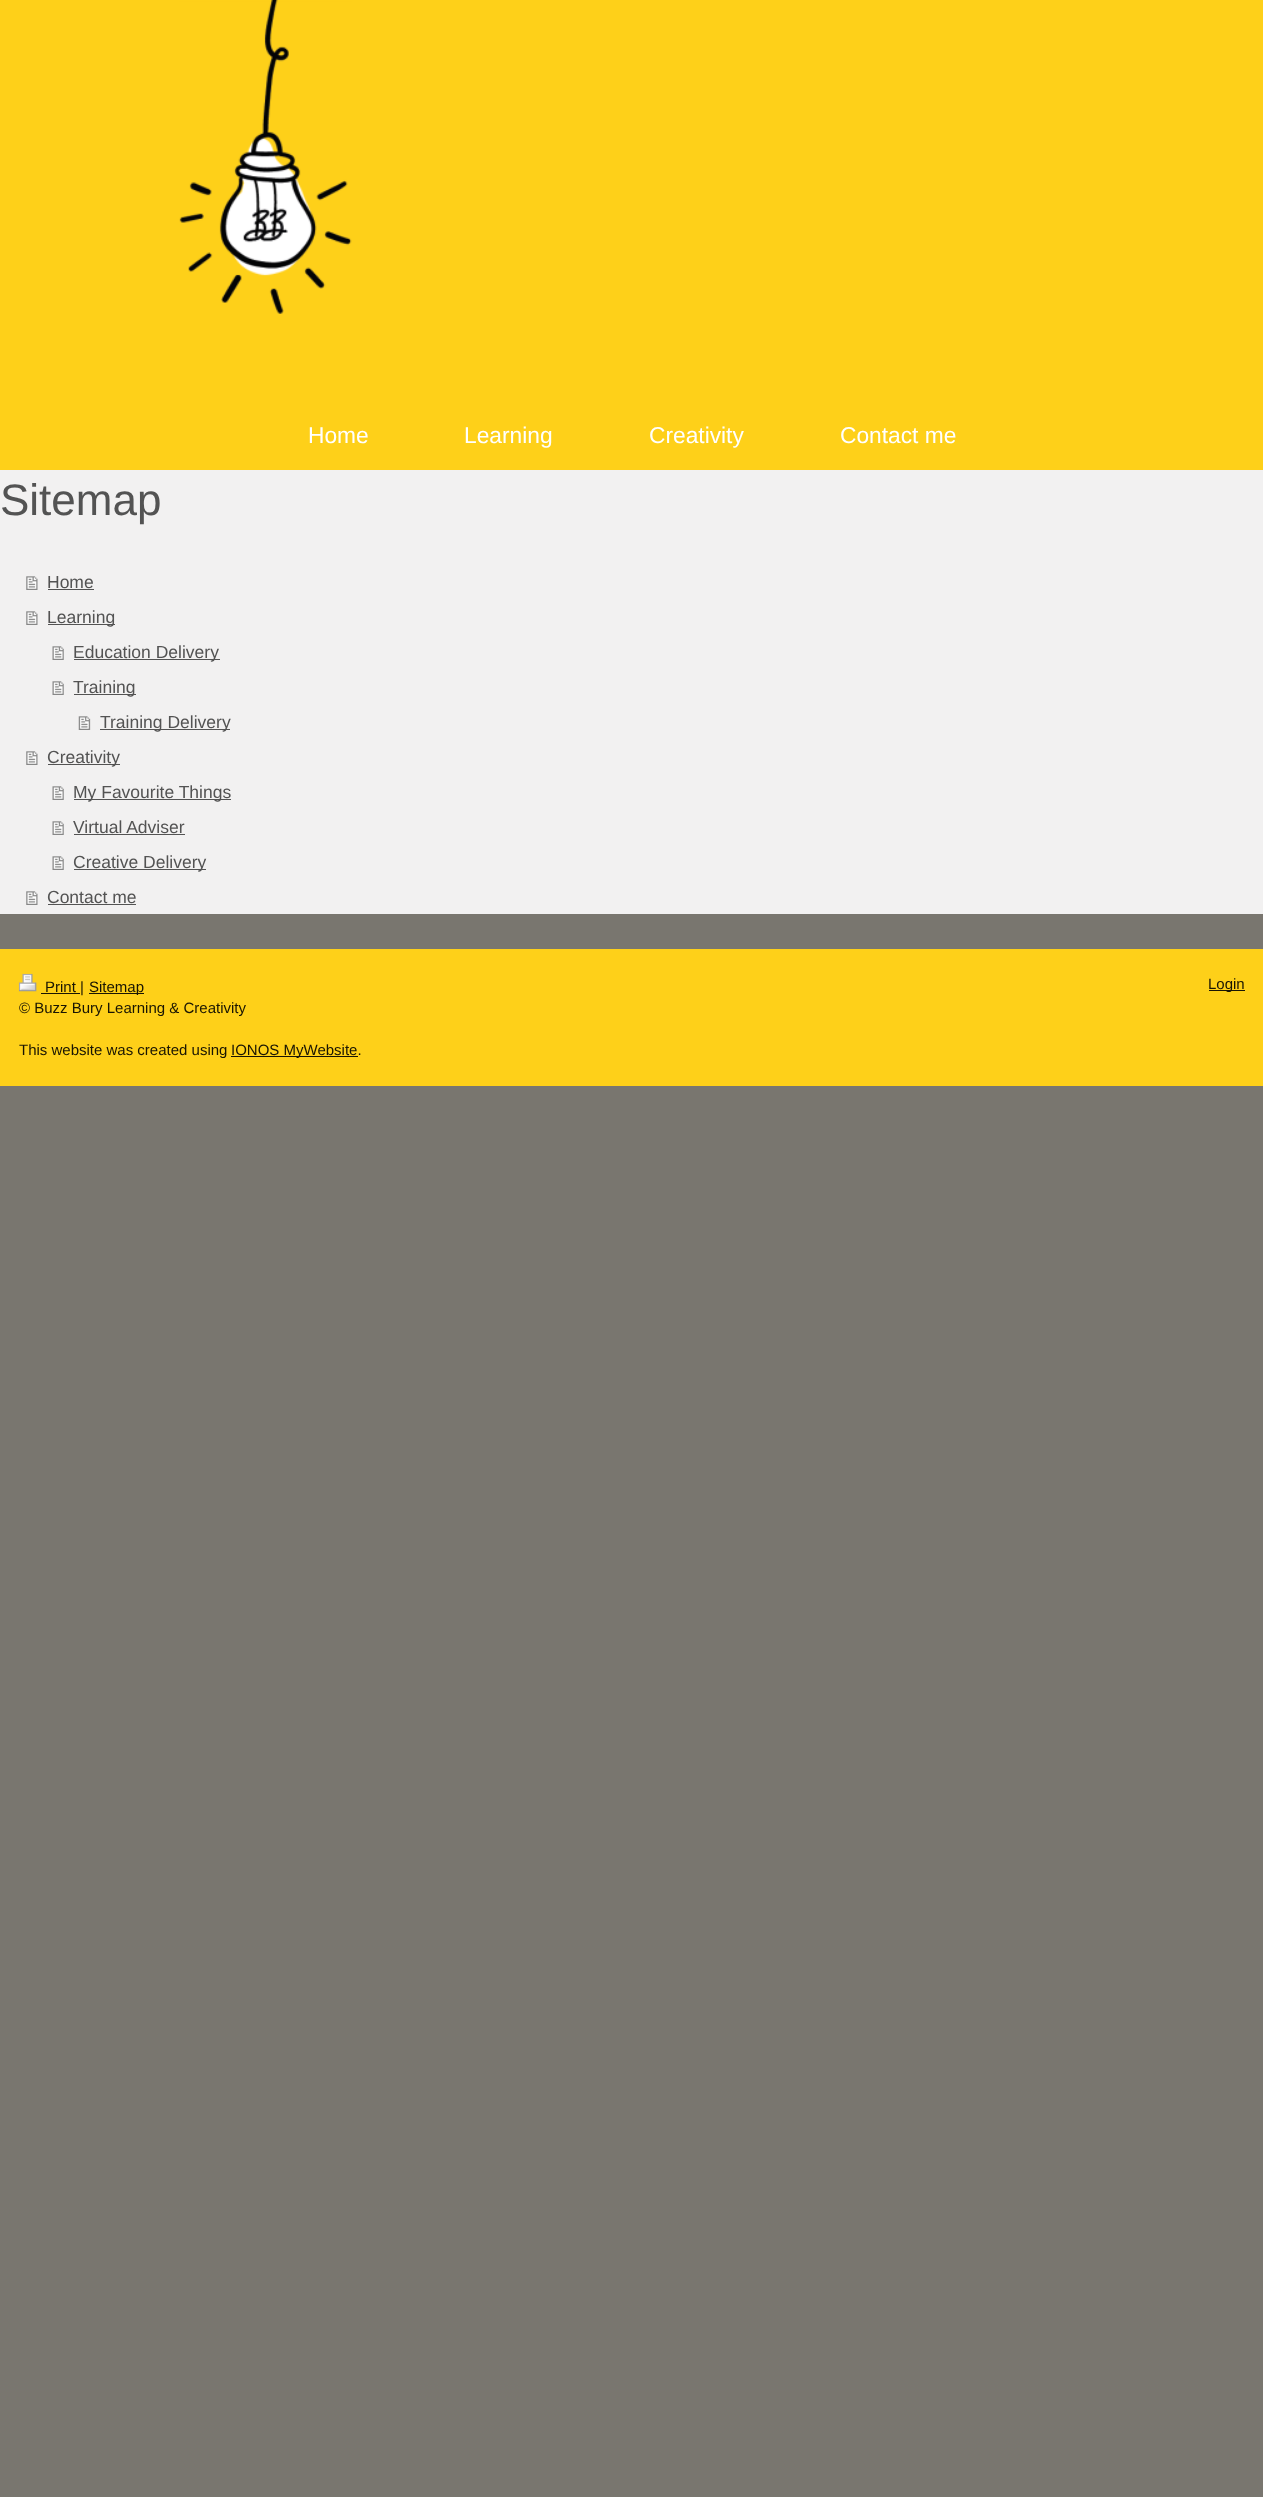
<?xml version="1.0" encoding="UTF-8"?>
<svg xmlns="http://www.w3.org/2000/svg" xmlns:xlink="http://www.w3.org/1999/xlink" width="1263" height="2497">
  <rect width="100%" height="100%" fill="#79766f" />
  <rect width="1263" height="470" fill="#fed019" />
  <image x="179" y="0" width="173" height="314" xlink:href="image1.png" />
  <rect y="470" width="1263" height="444" fill="#f2f1f1" />
  <image x="26" y="576" width="12" height="14" xlink:href="image2.png" />
  <rect x="48" y="589" width="46" height="1" fill="#535353" />
  <image x="26" y="611" width="12" height="14" xlink:href="image2.png" />
  <rect x="48" y="624" width="67" height="1" fill="#535353" />
  <image x="52" y="646" width="12" height="14" xlink:href="image3.png" />
  <rect x="74" y="659" width="146" height="1" fill="#535353" />
  <image x="52" y="681" width="12" height="14" xlink:href="image3.png" />
  <rect x="74" y="694" width="62" height="1" fill="#535353" />
  <image x="78" y="716" width="13" height="14" xlink:href="image4.png" />
  <rect x="100" y="729" width="130" height="1" fill="#535353" />
  <image x="26" y="751" width="12" height="14" xlink:href="image2.png" />
  <rect x="48" y="764" width="72" height="1" fill="#535353" />
  <image x="52" y="786" width="12" height="14" xlink:href="image3.png" />
  <rect x="74" y="799" width="157" height="1" fill="#535353" />
  <image x="52" y="821" width="12" height="14" xlink:href="image3.png" />
  <rect x="74" y="834" width="111" height="1" fill="#535353" />
  <image x="52" y="856" width="12" height="14" xlink:href="image3.png" />
  <rect x="74" y="869" width="132" height="1" fill="#535353" />
  <image x="26" y="891" width="12" height="14" xlink:href="image2.png" />
  <rect x="48" y="904" width="88" height="1" fill="#535353" />
  <rect y="949" width="1263" height="137" fill="#fed019" />
  <image x="18" y="973" width="19" height="19" xlink:href="image5.png" />
  <rect x="41" y="993" width="39" height="1" fill="#191503" />
  <rect x="89" y="993" width="55" height="1" fill="#191503" />
  <rect x="231" y="1056" width="127" height="1" fill="#191503" />
  <rect x="1209" y="990" width="36" height="1" fill="#191503" />
  <text x="308" y="443" style="font-family: Liberation Sans; font-size: 22.75px; fill: #ffffff">Home</text>
  <text x="464" y="443" style="font-family: Liberation Sans; font-size: 22.75px; fill: #ffffff">Learning</text>
  <text x="649" y="443" style="font-family: Liberation Sans; font-size: 22.75px; fill: #ffffff">Creativity</text>
  <text x="840" y="443" style="font-family: Liberation Sans; font-size: 22.75px; fill: #ffffff">Contact me</text>
  <text x="0" y="515" style="font-family: Liberation Sans; font-size: 44px; fill: #535353">Sitemap</text>
  <text x="47" y="588" style="font-family: Liberation Sans; font-size: 17.5px; fill: #535353">Home</text>
  <text x="47" y="623" style="font-family: Liberation Sans; font-size: 17.5px; fill: #535353">Learning</text>
  <text x="73" y="658" style="font-family: Liberation Sans; font-size: 17.5px; fill: #535353">Education Delivery</text>
  <text x="73" y="693" style="font-family: Liberation Sans; font-size: 17.5px; fill: #535353">Training</text>
  <text x="100" y="728" style="font-family: Liberation Sans; font-size: 17.5px; fill: #535353">Training Delivery</text>
  <text x="47" y="763" style="font-family: Liberation Sans; font-size: 17.5px; fill: #535353">Creativity</text>
  <text x="73" y="798" style="font-family: Liberation Sans; font-size: 17.5px; fill: #535353">My Favourite Things</text>
  <text x="73" y="833" style="font-family: Liberation Sans; font-size: 17.5px; fill: #535353">Virtual Adviser</text>
  <text x="73" y="868" style="font-family: Liberation Sans; font-size: 17.5px; fill: #535353">Creative Delivery</text>
  <text x="47" y="903" style="font-family: Liberation Sans; font-size: 17.5px; fill: #535353">Contact me</text>
  <text x="45" y="992" style="font-family: Liberation Sans; font-size: 15px; fill: #191503">Print |</text>
  <text x="89" y="992" style="font-family: Liberation Sans; font-size: 15px; fill: #191503">Sitemap</text>
  <text x="19" y="1013" style="font-family: Liberation Sans; font-size: 15px; fill: #191503">© Buzz Bury Learning &amp; Creativity</text>
  <text x="19" y="1055" style="font-family: Liberation Sans; font-size: 15px; fill: #191503">This website was created using</text>
  <text x="231" y="1055" style="font-family: Liberation Sans; font-size: 15px; fill: #191503">IONOS MyWebsite.</text>
  <text x="1208" y="989" style="font-family: Liberation Sans; font-size: 15px; fill: #191503">Login</text>
</svg>
